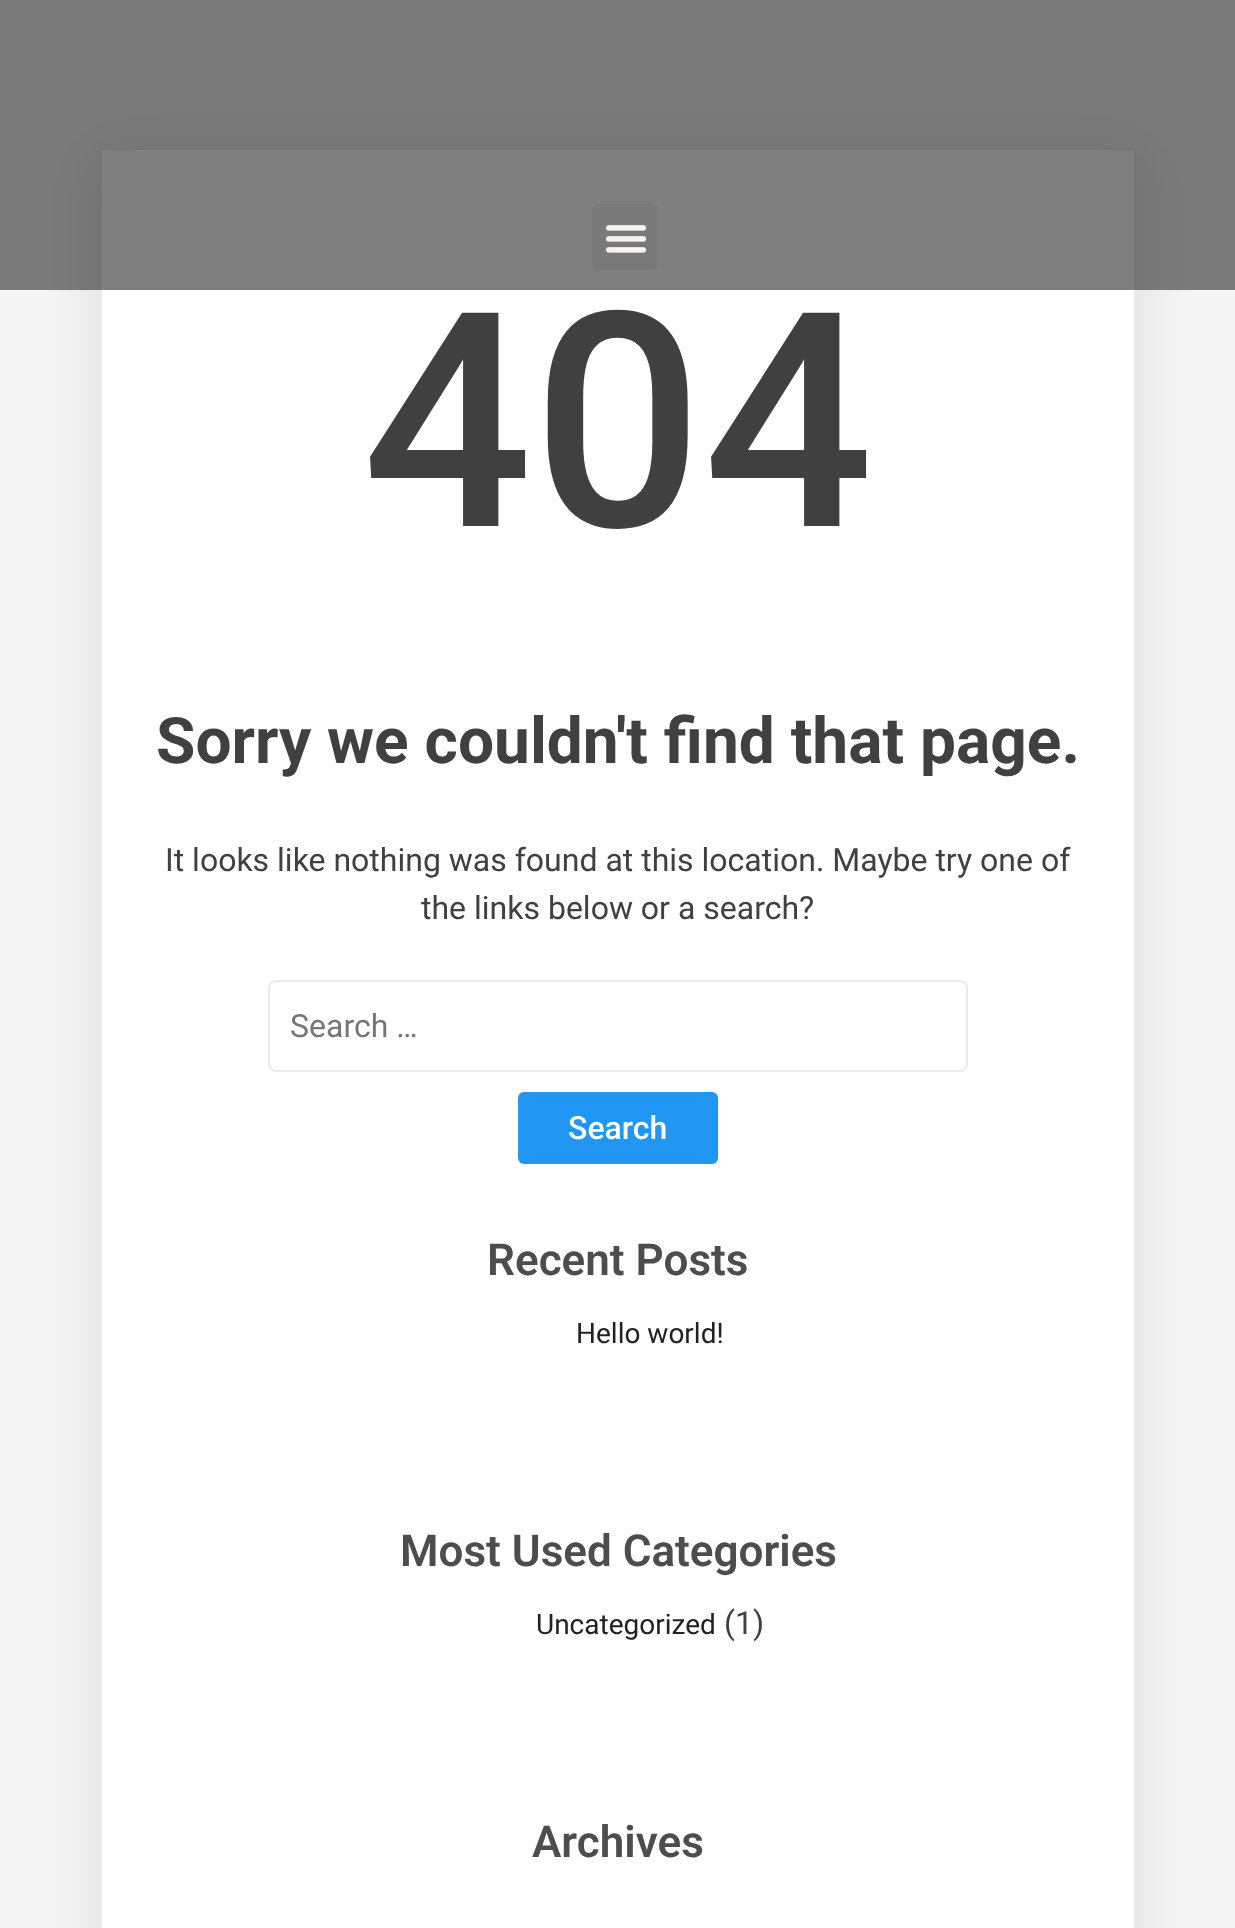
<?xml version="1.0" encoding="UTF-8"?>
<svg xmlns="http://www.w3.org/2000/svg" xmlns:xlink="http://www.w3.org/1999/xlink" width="1235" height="1928">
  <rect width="100%" height="100%" fill="#f5f5f5" />
  <rect x="100" y="158" width="1036" height="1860" fill="#000000" fill-opacity="0.1" filter="blur(30px)" />
  <rect x="101" y="149" width="1034" height="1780" fill="#ffffff" stroke="#eaeaea" stroke-width="2" />
  <rect width="1235" height="290" fill="#000000" fill-opacity="0.5" />
  <rect x="592" y="204" width="66" height="66" rx="6" fill="#797979" />
  <image x="605" y="225" width="42" height="28" xlink:href="image1.png" />
  <rect x="269" y="981" width="698" height="90" rx="7" fill="none" stroke="#eaeaea" stroke-width="2" />
  <rect x="518" y="1092" width="200" height="72" rx="6" fill="#2196f3" />
  <text x="362" y="526" style="font-family: Roboto; font-size: 300px; font-weight: 500; fill: #404040">404</text>
  <text x="156" y="763" style="font-family: Roboto; font-size: 64px; font-weight: bold; fill: #404040">Sorry we couldn't find that page.</text>
  <text x="165" y="871" style="font-family: Roboto; font-size: 32px; fill: #404040">It looks like nothing was found at this location. Maybe try one of</text>
  <text x="421" y="919" style="font-family: Roboto; font-size: 32px; fill: #404040">the links below or a search?</text>
  <text x="290" y="1037" style="font-family: Roboto; font-size: 32px; fill: #757575">Search …</text>
  <text x="568" y="1139" style="font-family: Roboto; font-size: 32px; font-weight: 500; fill: #ffffff">Search</text>
  <text x="487" y="1275" style="font-family: Roboto; font-size: 44px; font-weight: 600; fill: #4d4d4d">Recent Posts</text>
  <text x="576" y="1343" style="font-family: Roboto; font-size: 28px; fill: #212121">Hello world!</text>
  <text x="400" y="1566" style="font-family: Roboto; font-size: 44px; font-weight: 600; fill: #4d4d4d">Most Used Categories</text>
  <text x="536" y="1634" style="font-family: Roboto; font-size: 28px; fill: #212121">Uncategorized</text>
  <text x="724" y="1634" style="font-family: Roboto; font-size: 32px; fill: #404040">(1)</text>
  <text x="532" y="1857" style="font-family: Roboto; font-size: 44px; font-weight: 600; fill: #4d4d4d">Archives</text>
</svg>
